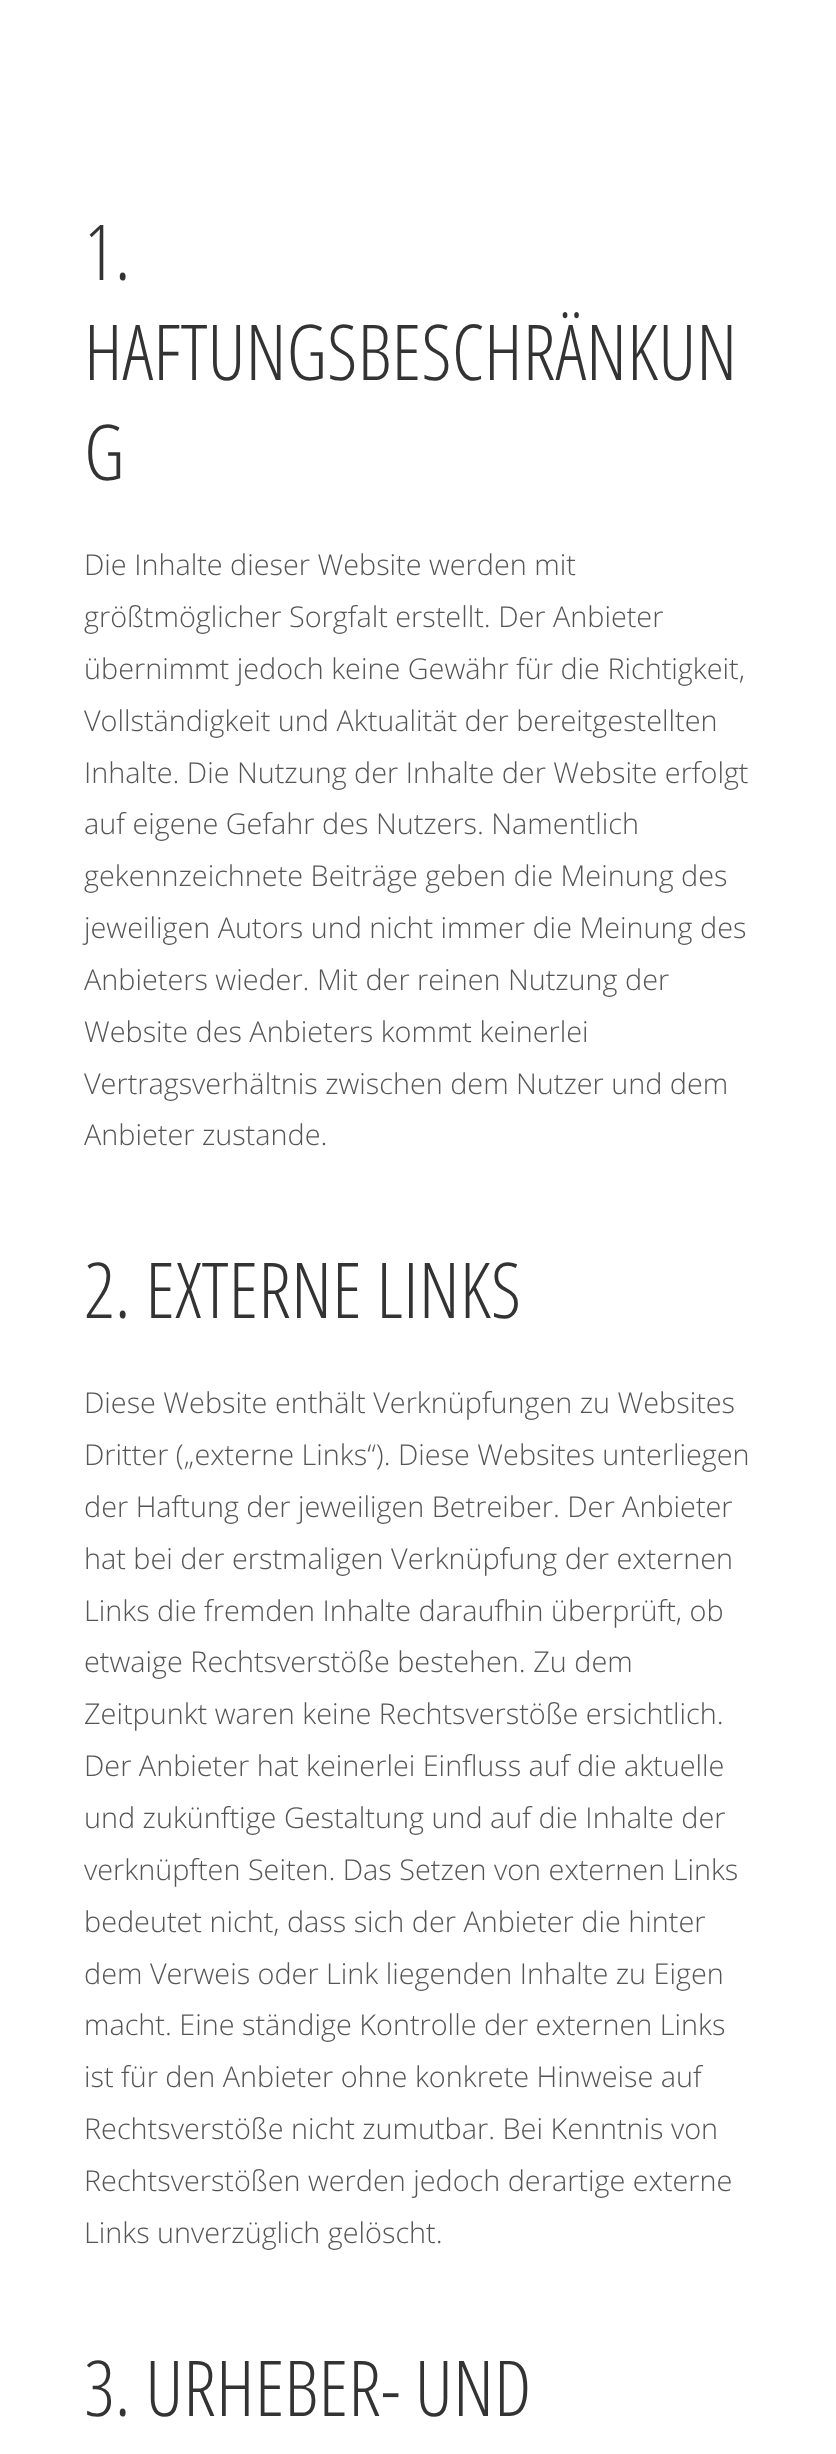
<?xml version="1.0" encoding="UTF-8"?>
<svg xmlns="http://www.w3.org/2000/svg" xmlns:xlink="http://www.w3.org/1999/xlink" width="836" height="2454">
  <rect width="100%" height="100%" fill="#ffffff" />
  <text x="84" y="280" style="font-family: Open Sans Condensed; font-size: 77.1px; font-weight: 300; fill: #333333">1.</text>
  <text x="84" y="380" style="font-family: Open Sans Condensed; font-size: 77.1px; font-weight: 300; fill: #333333">HAFTUNGSBESCHRÄNKUN</text>
  <text x="84" y="480" style="font-family: Open Sans Condensed; font-size: 77.1px; font-weight: 300; fill: #333333">G</text>
  <text x="84" y="575" style="font-family: Open Sans; font-size: 28.8px; font-weight: 300; fill: #555555">Die Inhalte dieser Website werden mit</text>
  <text x="84" y="627" style="font-family: Open Sans; font-size: 28.8px; font-weight: 300; fill: #555555">größtmöglicher Sorgfalt erstellt. Der Anbieter</text>
  <text x="84" y="679" style="font-family: Open Sans; font-size: 28.8px; font-weight: 300; fill: #555555">übernimmt jedoch keine Gewähr für die Richtigkeit,</text>
  <text x="84" y="731" style="font-family: Open Sans; font-size: 28.8px; font-weight: 300; fill: #555555">Vollständigkeit und Aktualität der bereitgestellten</text>
  <text x="84" y="783" style="font-family: Open Sans; font-size: 28.8px; font-weight: 300; fill: #555555">Inhalte. Die Nutzung der Inhalte der Website erfolgt</text>
  <text x="84" y="834" style="font-family: Open Sans; font-size: 28.8px; font-weight: 300; fill: #555555">auf eigene Gefahr des Nutzers. Namentlich</text>
  <text x="84" y="886" style="font-family: Open Sans; font-size: 28.8px; font-weight: 300; fill: #555555">gekennzeichnete Beiträge geben die Meinung des</text>
  <text x="84" y="938" style="font-family: Open Sans; font-size: 28.8px; font-weight: 300; fill: #555555">jeweiligen Autors und nicht immer die Meinung des</text>
  <text x="84" y="990" style="font-family: Open Sans; font-size: 28.8px; font-weight: 300; fill: #555555">Anbieters wieder. Mit der reinen Nutzung der</text>
  <text x="84" y="1042" style="font-family: Open Sans; font-size: 28.8px; font-weight: 300; fill: #555555">Website des Anbieters kommt keinerlei</text>
  <text x="84" y="1094" style="font-family: Open Sans; font-size: 28.8px; font-weight: 300; fill: #555555">Vertragsverhältnis zwischen dem Nutzer und dem</text>
  <text x="84" y="1145" style="font-family: Open Sans; font-size: 28.8px; font-weight: 300; fill: #555555">Anbieter zustande.</text>
  <text x="84" y="1318" style="font-family: Open Sans Condensed; font-size: 77.1px; font-weight: 300; fill: #333333">2. EXTERNE LINKS</text>
  <text x="84" y="1413" style="font-family: Open Sans; font-size: 28.8px; font-weight: 300; fill: #555555">Diese Website enthält Verknüpfungen zu Websites</text>
  <text x="84" y="1465" style="font-family: Open Sans; font-size: 28.8px; font-weight: 300; fill: #555555">Dritter („externe Links“). Diese Websites unterliegen</text>
  <text x="84" y="1517" style="font-family: Open Sans; font-size: 28.8px; font-weight: 300; fill: #555555">der Haftung der jeweiligen Betreiber. Der Anbieter</text>
  <text x="84" y="1569" style="font-family: Open Sans; font-size: 28.8px; font-weight: 300; fill: #555555">hat bei der erstmaligen Verknüpfung der externen</text>
  <text x="84" y="1621" style="font-family: Open Sans; font-size: 28.8px; font-weight: 300; fill: #555555">Links die fremden Inhalte daraufhin überprüft, ob</text>
  <text x="84" y="1672" style="font-family: Open Sans; font-size: 28.8px; font-weight: 300; fill: #555555">etwaige Rechtsverstöße bestehen. Zu dem</text>
  <text x="84" y="1724" style="font-family: Open Sans; font-size: 28.8px; font-weight: 300; fill: #555555">Zeitpunkt waren keine Rechtsverstöße ersichtlich.</text>
  <text x="84" y="1776" style="font-family: Open Sans; font-size: 28.8px; font-weight: 300; fill: #555555">Der Anbieter hat keinerlei Einfluss auf die aktuelle</text>
  <text x="84" y="1828" style="font-family: Open Sans; font-size: 28.8px; font-weight: 300; fill: #555555">und zukünftige Gestaltung und auf die Inhalte der</text>
  <text x="84" y="1880" style="font-family: Open Sans; font-size: 28.8px; font-weight: 300; fill: #555555">verknüpften Seiten. Das Setzen von externen Links</text>
  <text x="84" y="1932" style="font-family: Open Sans; font-size: 28.8px; font-weight: 300; fill: #555555">bedeutet nicht, dass sich der Anbieter die hinter</text>
  <text x="84" y="1984" style="font-family: Open Sans; font-size: 28.8px; font-weight: 300; fill: #555555">dem Verweis oder Link liegenden Inhalte zu Eigen</text>
  <text x="84" y="2035" style="font-family: Open Sans; font-size: 28.8px; font-weight: 300; fill: #555555">macht. Eine ständige Kontrolle der externen Links</text>
  <text x="84" y="2087" style="font-family: Open Sans; font-size: 28.8px; font-weight: 300; fill: #555555">ist für den Anbieter ohne konkrete Hinweise auf</text>
  <text x="84" y="2139" style="font-family: Open Sans; font-size: 28.8px; font-weight: 300; fill: #555555">Rechtsverstöße nicht zumutbar. Bei Kenntnis von</text>
  <text x="84" y="2191" style="font-family: Open Sans; font-size: 28.8px; font-weight: 300; fill: #555555">Rechtsverstößen werden jedoch derartige externe</text>
  <text x="84" y="2243" style="font-family: Open Sans; font-size: 28.8px; font-weight: 300; fill: #555555">Links unverzüglich gelöscht.</text>
  <text x="84" y="2416" style="font-family: Open Sans Condensed; font-size: 77.1px; font-weight: 300; fill: #333333">3. URHEBER- UND</text>
</svg>
